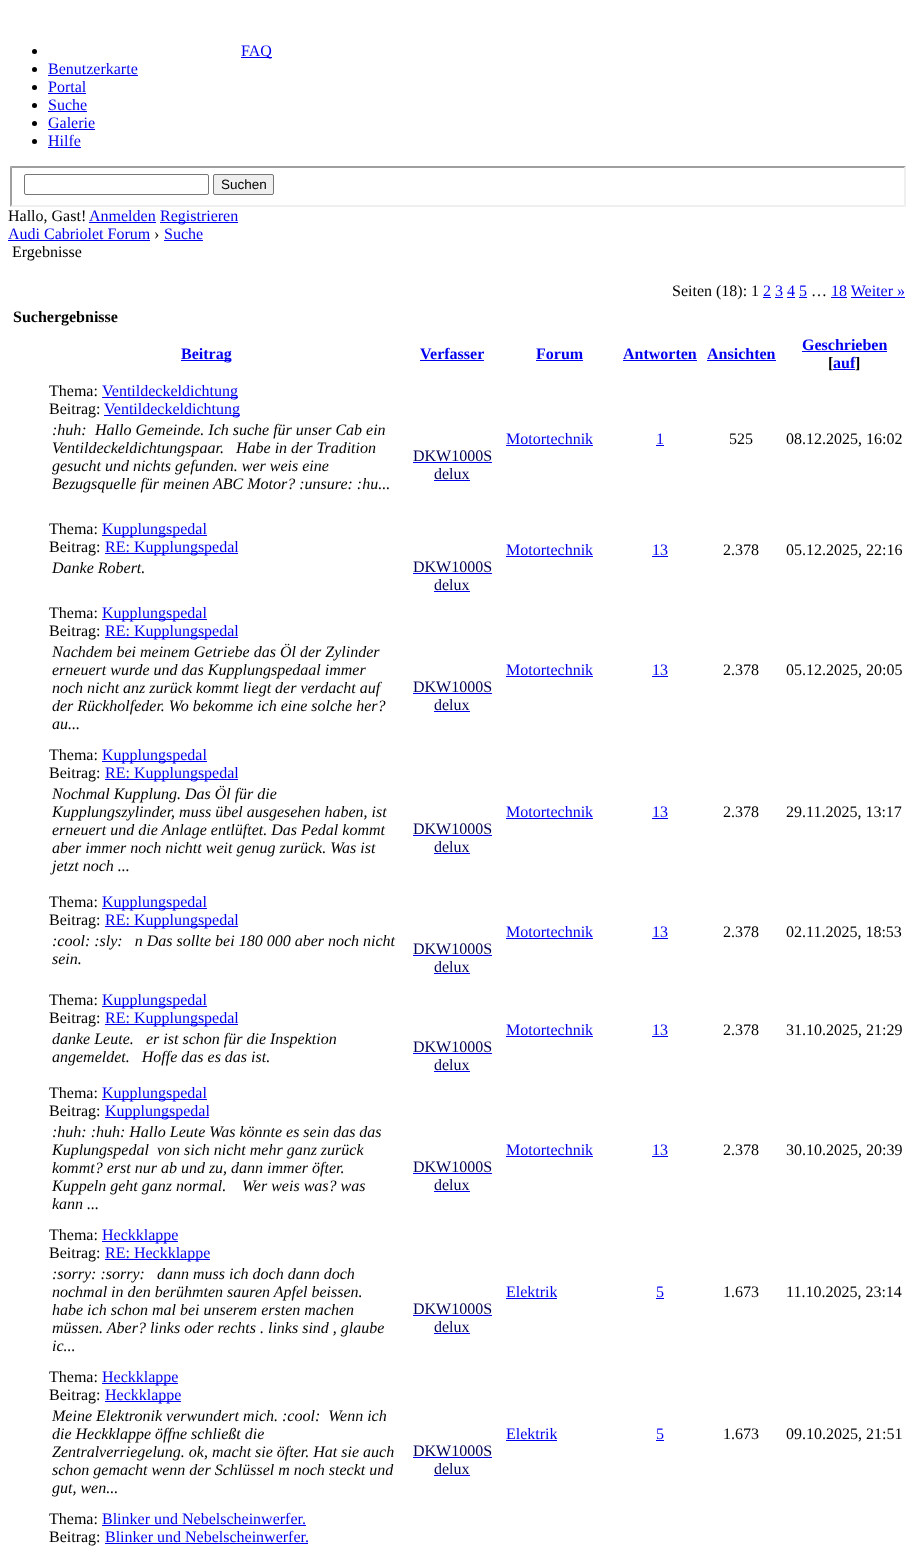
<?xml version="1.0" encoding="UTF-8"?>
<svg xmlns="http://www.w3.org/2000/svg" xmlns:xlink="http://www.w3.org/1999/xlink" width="916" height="1559">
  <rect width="100%" height="100%" fill="#ffffff" />
  <circle cx="34.5" cy="51.5" r="2.5" fill="#000000" />
  <rect x="241" y="57" width="31" height="1" fill="#0000ee" />
  <circle cx="34.5" cy="69.5" r="2.5" fill="#000000" />
  <rect x="48" y="75" width="90" height="1" fill="#0000ee" />
  <circle cx="34.5" cy="87.5" r="2.5" fill="#000000" />
  <rect x="48" y="93" width="38" height="1" fill="#0000ee" />
  <circle cx="34.5" cy="105.5" r="2.5" fill="#000000" />
  <rect x="48" y="111" width="39" height="1" fill="#0000ee" />
  <circle cx="34.5" cy="123.5" r="2.5" fill="#000000" />
  <rect x="48" y="129" width="47" height="1" fill="#0000ee" />
  <circle cx="34.5" cy="141.5" r="2.5" fill="#000000" />
  <rect x="48" y="147" width="33" height="1" fill="#0000ee" />
  <path d="M 10 166 h 896 l -2 2 h -892 z" fill="#9f9f9f" />
  <path d="M 906 166 v 41 l -2 -2 v -37 z" fill="#efefef" />
  <path d="M 906 207 h -896 l 2 -2 h 892 z" fill="#efefef" />
  <path d="M 10 207 v -41 l 2 2 v 37 z" fill="#9f9f9f" />
  <rect x="24.5" y="174.5" width="184" height="20" rx="1.5" fill="none" stroke="#767676" />
  <rect x="213.5" y="174.5" width="60" height="20" rx="1.5" fill="#efefef" stroke="#767676" />
  <rect x="89" y="222" width="67" height="1" fill="#0000ee" />
  <rect x="160" y="222" width="78" height="1" fill="#0000ee" />
  <rect x="8" y="240" width="142" height="1" fill="#0000ee" />
  <rect x="164" y="240" width="39" height="1" fill="#0000ee" />
  <rect x="763" y="297" width="8" height="1" fill="#0000ee" />
  <rect x="831" y="297" width="16" height="1" fill="#0000ee" />
  <rect x="775" y="297" width="8" height="1" fill="#0000ee" />
  <rect x="787" y="297" width="8" height="1" fill="#0000ee" />
  <rect x="799" y="297" width="8" height="1" fill="#0000ee" />
  <rect x="851" y="297" width="54" height="1" fill="#0000ee" />
  <rect x="181" y="360" width="50" height="1" fill="#0000ee" />
  <rect x="420" y="360" width="64" height="1" fill="#0000ee" />
  <rect x="536" y="360" width="47" height="1" fill="#0000ee" />
  <rect x="623" y="360" width="74" height="1" fill="#0000ee" />
  <rect x="707" y="360" width="69" height="1" fill="#0000ee" />
  <rect x="802" y="351" width="85" height="1" fill="#0000ee" />
  <rect x="833" y="369" width="22" height="1" fill="#0000ee" />
  <rect x="102" y="397" width="136" height="1" fill="#0000ee" />
  <rect x="104" y="415" width="136" height="1" fill="#0000ee" />
  <rect x="506" y="445" width="87" height="1" fill="#0000ee" />
  <rect x="656" y="445" width="8" height="1" fill="#0000ee" />
  <rect x="413" y="462" width="79" height="1" fill="#0000ee" />
  <rect x="434" y="480" width="36" height="1" fill="#0000ee" />
  <rect x="102" y="535" width="105" height="1" fill="#0000ee" />
  <rect x="105" y="553" width="133" height="1" fill="#0000ee" />
  <rect x="506" y="556" width="87" height="1" fill="#0000ee" />
  <rect x="652" y="556" width="16" height="1" fill="#0000ee" />
  <rect x="413" y="573" width="79" height="1" fill="#0000ee" />
  <rect x="434" y="591" width="36" height="1" fill="#0000ee" />
  <rect x="102" y="619" width="105" height="1" fill="#0000ee" />
  <rect x="105" y="637" width="133" height="1" fill="#0000ee" />
  <rect x="506" y="676" width="87" height="1" fill="#0000ee" />
  <rect x="652" y="676" width="16" height="1" fill="#0000ee" />
  <rect x="413" y="693" width="79" height="1" fill="#0000ee" />
  <rect x="434" y="711" width="36" height="1" fill="#0000ee" />
  <rect x="102" y="761" width="105" height="1" fill="#0000ee" />
  <rect x="105" y="779" width="133" height="1" fill="#0000ee" />
  <rect x="506" y="818" width="87" height="1" fill="#0000ee" />
  <rect x="652" y="818" width="16" height="1" fill="#0000ee" />
  <rect x="413" y="835" width="79" height="1" fill="#0000ee" />
  <rect x="434" y="853" width="36" height="1" fill="#0000ee" />
  <rect x="102" y="908" width="105" height="1" fill="#0000ee" />
  <rect x="105" y="926" width="133" height="1" fill="#0000ee" />
  <rect x="506" y="938" width="87" height="1" fill="#0000ee" />
  <rect x="652" y="938" width="16" height="1" fill="#0000ee" />
  <rect x="413" y="955" width="79" height="1" fill="#0000ee" />
  <rect x="434" y="973" width="36" height="1" fill="#0000ee" />
  <rect x="102" y="1006" width="105" height="1" fill="#0000ee" />
  <rect x="105" y="1024" width="133" height="1" fill="#0000ee" />
  <rect x="506" y="1036" width="87" height="1" fill="#0000ee" />
  <rect x="652" y="1036" width="16" height="1" fill="#0000ee" />
  <rect x="413" y="1053" width="79" height="1" fill="#0000ee" />
  <rect x="434" y="1071" width="36" height="1" fill="#0000ee" />
  <rect x="102" y="1099" width="105" height="1" fill="#0000ee" />
  <rect x="105" y="1117" width="104" height="1" fill="#0000ee" />
  <rect x="506" y="1156" width="87" height="1" fill="#0000ee" />
  <rect x="652" y="1156" width="16" height="1" fill="#0000ee" />
  <rect x="413" y="1173" width="79" height="1" fill="#0000ee" />
  <rect x="434" y="1191" width="36" height="1" fill="#0000ee" />
  <rect x="102" y="1241" width="76" height="1" fill="#0000ee" />
  <rect x="105" y="1259" width="105" height="1" fill="#0000ee" />
  <rect x="506" y="1298" width="51" height="1" fill="#0000ee" />
  <rect x="656" y="1298" width="8" height="1" fill="#0000ee" />
  <rect x="413" y="1315" width="79" height="1" fill="#0000ee" />
  <rect x="434" y="1333" width="36" height="1" fill="#0000ee" />
  <rect x="102" y="1383" width="76" height="1" fill="#0000ee" />
  <rect x="105" y="1401" width="76" height="1" fill="#0000ee" />
  <rect x="506" y="1440" width="51" height="1" fill="#0000ee" />
  <rect x="656" y="1440" width="8" height="1" fill="#0000ee" />
  <rect x="413" y="1457" width="79" height="1" fill="#0000ee" />
  <rect x="434" y="1475" width="36" height="1" fill="#0000ee" />
  <rect x="102" y="1525" width="204" height="1" fill="#0000ee" />
  <rect x="105" y="1543" width="203" height="1" fill="#0000ee" />
  <text x="241" y="56" style="font-family: Liberation Serif; font-size: 16px; fill: #0000ee">FAQ</text>
  <text x="48" y="74" style="font-family: Liberation Serif; font-size: 16px; fill: #0000ee">Benutzerkarte</text>
  <text x="48" y="92" style="font-family: Liberation Serif; font-size: 16px; fill: #0000ee">Portal</text>
  <text x="48" y="110" style="font-family: Liberation Serif; font-size: 16px; fill: #0000ee">Suche</text>
  <text x="48" y="128" style="font-family: Liberation Serif; font-size: 16px; fill: #0000ee">Galerie</text>
  <text x="48" y="146" style="font-family: Liberation Serif; font-size: 16px; fill: #0000ee">Hilfe</text>
  <text x="221" y="189" style="font-family: Liberation Sans; font-size: 13.5px; fill: #000000">Suchen</text>
  <text x="8" y="221" style="font-family: Liberation Serif; font-size: 16px; fill: #000000">Hallo, Gast!</text>
  <text x="89" y="221" style="font-family: Liberation Serif; font-size: 16px; fill: #0000ee">Anmelden</text>
  <text x="160" y="221" style="font-family: Liberation Serif; font-size: 16px; fill: #0000ee">Registrieren</text>
  <text x="8" y="239" style="font-family: Liberation Serif; font-size: 16px; fill: #0000ee">Audi Cabriolet Forum</text>
  <text x="154" y="239" style="font-family: Liberation Serif; font-size: 16px; fill: #000000">›</text>
  <text x="164" y="239" style="font-family: Liberation Serif; font-size: 16px; fill: #0000ee">Suche</text>
  <text x="12" y="257" style="font-family: Liberation Serif; font-size: 16px; fill: #000000">Ergebnisse</text>
  <text x="672" y="296" style="font-family: Liberation Serif; font-size: 16px; fill: #000000">Seiten (18): 1</text>
  <text x="763" y="296" style="font-family: Liberation Serif; font-size: 16px; fill: #0000ee">2 3 4 5</text>
  <text x="811" y="296" style="font-family: Liberation Serif; font-size: 16px; fill: #000000">…</text>
  <text x="831" y="296" style="font-family: Liberation Serif; font-size: 16px; fill: #0000ee">18 Weiter »</text>
  <text x="13" y="322" style="font-family: Liberation Serif; font-size: 16px; font-weight: bold; fill: #000000">Suchergebnisse</text>
  <text x="181" y="359" style="font-family: Liberation Serif; font-size: 16px; font-weight: bold; fill: #0000ee">Beitrag</text>
  <text x="420" y="359" style="font-family: Liberation Serif; font-size: 16px; font-weight: bold; fill: #0000ee">Verfasser</text>
  <text x="536" y="359" style="font-family: Liberation Serif; font-size: 16px; font-weight: bold; fill: #0000ee">Forum</text>
  <text x="623" y="359" style="font-family: Liberation Serif; font-size: 16px; font-weight: bold; fill: #0000ee">Antworten</text>
  <text x="707" y="359" style="font-family: Liberation Serif; font-size: 16px; font-weight: bold; fill: #0000ee">Ansichten</text>
  <text x="802" y="350" style="font-family: Liberation Serif; font-size: 16px; font-weight: bold; fill: #0000ee">Geschrieben</text>
  <text x="828" y="368" style="font-family: Liberation Serif; font-size: 16px; font-weight: bold; fill: #000000">[</text>
  <text x="833" y="368" style="font-family: Liberation Serif; font-size: 16px; font-weight: bold; fill: #0000ee">auf</text>
  <text x="855" y="368" style="font-family: Liberation Serif; font-size: 16px; font-weight: bold; fill: #000000">]</text>
  <text x="49" y="396" style="font-family: Liberation Serif; font-size: 16px; fill: #000000">Thema:</text>
  <text x="102" y="396" style="font-family: Liberation Serif; font-size: 16px; fill: #0000ee">Ventildeckeldichtung</text>
  <text x="49" y="414" style="font-family: Liberation Serif; font-size: 16px; fill: #000000">Beitrag:</text>
  <text x="104" y="414" style="font-family: Liberation Serif; font-size: 16px; fill: #0000ee">Ventildeckeldichtung</text>
  <text x="52" y="435" style="font-family: Liberation Serif; font-size: 16px; font-style: italic; fill: #000000">:huh:</text>
  <text x="95" y="435" style="font-family: Liberation Serif; font-size: 16px; font-style: italic; fill: #000000">Hallo Gemeinde. Ich suche für unser Cab ein</text>
  <text x="52" y="453" style="font-family: Liberation Serif; font-size: 16px; font-style: italic; fill: #000000">Ventildeckeldichtungspaar.</text>
  <text x="236" y="453" style="font-family: Liberation Serif; font-size: 16px; font-style: italic; fill: #000000">Habe in der Tradition</text>
  <text x="52" y="471" style="font-family: Liberation Serif; font-size: 16px; font-style: italic; fill: #000000">gesucht und nichts gefunden. wer weis eine</text>
  <text x="52" y="489" style="font-family: Liberation Serif; font-size: 16px; font-style: italic; fill: #000000">Bezugsquelle für meinen ABC Motor? :unsure: :hu...</text>
  <text x="506" y="444" style="font-family: Liberation Serif; font-size: 16px; fill: #0000ee">Motortechnik</text>
  <text x="656" y="444" style="font-family: Liberation Serif; font-size: 16px; fill: #0000ee">1</text>
  <text x="729" y="444" style="font-family: Liberation Serif; font-size: 16px; fill: #000000">525</text>
  <text x="786" y="444" style="font-family: Liberation Serif; font-size: 16px; fill: #000000">08.12.2025, 16:02</text>
  <text x="413" y="461" style="font-family: Liberation Serif; font-size: 16px; fill: #000055">DKW1000S</text>
  <text x="434" y="479" style="font-family: Liberation Serif; font-size: 16px; fill: #000055">delux</text>
  <text x="49" y="534" style="font-family: Liberation Serif; font-size: 16px; fill: #000000">Thema:</text>
  <text x="102" y="534" style="font-family: Liberation Serif; font-size: 16px; fill: #0000ee">Kupplungspedal</text>
  <text x="49" y="552" style="font-family: Liberation Serif; font-size: 16px; fill: #000000">Beitrag:</text>
  <text x="105" y="552" style="font-family: Liberation Serif; font-size: 16px; fill: #0000ee">RE: Kupplungspedal</text>
  <text x="52" y="573" style="font-family: Liberation Serif; font-size: 16px; font-style: italic; fill: #000000">Danke Robert.</text>
  <text x="506" y="555" style="font-family: Liberation Serif; font-size: 16px; fill: #0000ee">Motortechnik</text>
  <text x="652" y="555" style="font-family: Liberation Serif; font-size: 16px; fill: #0000ee">13</text>
  <text x="723" y="555" style="font-family: Liberation Serif; font-size: 16px; fill: #000000">2.378</text>
  <text x="786" y="555" style="font-family: Liberation Serif; font-size: 16px; fill: #000000">05.12.2025, 22:16</text>
  <text x="413" y="572" style="font-family: Liberation Serif; font-size: 16px; fill: #000055">DKW1000S</text>
  <text x="434" y="590" style="font-family: Liberation Serif; font-size: 16px; fill: #000055">delux</text>
  <text x="49" y="618" style="font-family: Liberation Serif; font-size: 16px; fill: #000000">Thema:</text>
  <text x="102" y="618" style="font-family: Liberation Serif; font-size: 16px; fill: #0000ee">Kupplungspedal</text>
  <text x="49" y="636" style="font-family: Liberation Serif; font-size: 16px; fill: #000000">Beitrag:</text>
  <text x="105" y="636" style="font-family: Liberation Serif; font-size: 16px; fill: #0000ee">RE: Kupplungspedal</text>
  <text x="52" y="657" style="font-family: Liberation Serif; font-size: 16px; font-style: italic; fill: #000000">Nachdem bei meinem Getriebe das Öl der Zylinder</text>
  <text x="52" y="675" style="font-family: Liberation Serif; font-size: 16px; font-style: italic; fill: #000000">erneuert wurde und das Kupplungspedaal immer</text>
  <text x="52" y="693" style="font-family: Liberation Serif; font-size: 16px; font-style: italic; fill: #000000">noch nicht anz zurück kommt liegt der verdacht auf</text>
  <text x="52" y="711" style="font-family: Liberation Serif; font-size: 16px; font-style: italic; fill: #000000">der Rückholfeder. Wo bekomme ich eine solche her?</text>
  <text x="52" y="729" style="font-family: Liberation Serif; font-size: 16px; font-style: italic; fill: #000000">au...</text>
  <text x="506" y="675" style="font-family: Liberation Serif; font-size: 16px; fill: #0000ee">Motortechnik</text>
  <text x="652" y="675" style="font-family: Liberation Serif; font-size: 16px; fill: #0000ee">13</text>
  <text x="723" y="675" style="font-family: Liberation Serif; font-size: 16px; fill: #000000">2.378</text>
  <text x="786" y="675" style="font-family: Liberation Serif; font-size: 16px; fill: #000000">05.12.2025, 20:05</text>
  <text x="413" y="692" style="font-family: Liberation Serif; font-size: 16px; fill: #000055">DKW1000S</text>
  <text x="434" y="710" style="font-family: Liberation Serif; font-size: 16px; fill: #000055">delux</text>
  <text x="49" y="760" style="font-family: Liberation Serif; font-size: 16px; fill: #000000">Thema:</text>
  <text x="102" y="760" style="font-family: Liberation Serif; font-size: 16px; fill: #0000ee">Kupplungspedal</text>
  <text x="49" y="778" style="font-family: Liberation Serif; font-size: 16px; fill: #000000">Beitrag:</text>
  <text x="105" y="778" style="font-family: Liberation Serif; font-size: 16px; fill: #0000ee">RE: Kupplungspedal</text>
  <text x="52" y="799" style="font-family: Liberation Serif; font-size: 16px; font-style: italic; fill: #000000">Nochmal Kupplung. Das Öl für die</text>
  <text x="52" y="817" style="font-family: Liberation Serif; font-size: 16px; font-style: italic; fill: #000000">Kupplungszylinder, muss übel ausgesehen haben, ist</text>
  <text x="52" y="835" style="font-family: Liberation Serif; font-size: 16px; font-style: italic; fill: #000000">erneuert und die Anlage entlüftet. Das Pedal kommt</text>
  <text x="52" y="853" style="font-family: Liberation Serif; font-size: 16px; font-style: italic; fill: #000000">aber immer noch nichtt weit genug zurück. Was ist</text>
  <text x="52" y="871" style="font-family: Liberation Serif; font-size: 16px; font-style: italic; fill: #000000">jetzt noch ...</text>
  <text x="506" y="817" style="font-family: Liberation Serif; font-size: 16px; fill: #0000ee">Motortechnik</text>
  <text x="652" y="817" style="font-family: Liberation Serif; font-size: 16px; fill: #0000ee">13</text>
  <text x="723" y="817" style="font-family: Liberation Serif; font-size: 16px; fill: #000000">2.378</text>
  <text x="786" y="817" style="font-family: Liberation Serif; font-size: 16px; fill: #000000">29.11.2025, 13:17</text>
  <text x="413" y="834" style="font-family: Liberation Serif; font-size: 16px; fill: #000055">DKW1000S</text>
  <text x="434" y="852" style="font-family: Liberation Serif; font-size: 16px; fill: #000055">delux</text>
  <text x="49" y="907" style="font-family: Liberation Serif; font-size: 16px; fill: #000000">Thema:</text>
  <text x="102" y="907" style="font-family: Liberation Serif; font-size: 16px; fill: #0000ee">Kupplungspedal</text>
  <text x="49" y="925" style="font-family: Liberation Serif; font-size: 16px; fill: #000000">Beitrag:</text>
  <text x="105" y="925" style="font-family: Liberation Serif; font-size: 16px; fill: #0000ee">RE: Kupplungspedal</text>
  <text x="52" y="946" style="font-family: Liberation Serif; font-size: 16px; font-style: italic; fill: #000000" xml:space="preserve">:cool: :sly:   n Das sollte bei 180 000 aber noch nicht</text>
  <text x="52" y="964" style="font-family: Liberation Serif; font-size: 16px; font-style: italic; fill: #000000">sein.</text>
  <text x="506" y="937" style="font-family: Liberation Serif; font-size: 16px; fill: #0000ee">Motortechnik</text>
  <text x="652" y="937" style="font-family: Liberation Serif; font-size: 16px; fill: #0000ee">13</text>
  <text x="723" y="937" style="font-family: Liberation Serif; font-size: 16px; fill: #000000">2.378</text>
  <text x="786" y="937" style="font-family: Liberation Serif; font-size: 16px; fill: #000000">02.11.2025, 18:53</text>
  <text x="413" y="954" style="font-family: Liberation Serif; font-size: 16px; fill: #000055">DKW1000S</text>
  <text x="434" y="972" style="font-family: Liberation Serif; font-size: 16px; fill: #000055">delux</text>
  <text x="49" y="1005" style="font-family: Liberation Serif; font-size: 16px; fill: #000000">Thema:</text>
  <text x="102" y="1005" style="font-family: Liberation Serif; font-size: 16px; fill: #0000ee">Kupplungspedal</text>
  <text x="49" y="1023" style="font-family: Liberation Serif; font-size: 16px; fill: #000000">Beitrag:</text>
  <text x="105" y="1023" style="font-family: Liberation Serif; font-size: 16px; fill: #0000ee">RE: Kupplungspedal</text>
  <text x="52" y="1044" style="font-family: Liberation Serif; font-size: 16px; font-style: italic; fill: #000000">danke Leute.</text>
  <text x="146" y="1044" style="font-family: Liberation Serif; font-size: 16px; font-style: italic; fill: #000000">er ist schon für die Inspektion</text>
  <text x="52" y="1062" style="font-family: Liberation Serif; font-size: 16px; font-style: italic; fill: #000000" xml:space="preserve">angemeldet.   Hoffe das es das ist.</text>
  <text x="506" y="1035" style="font-family: Liberation Serif; font-size: 16px; fill: #0000ee">Motortechnik</text>
  <text x="652" y="1035" style="font-family: Liberation Serif; font-size: 16px; fill: #0000ee">13</text>
  <text x="723" y="1035" style="font-family: Liberation Serif; font-size: 16px; fill: #000000">2.378</text>
  <text x="786" y="1035" style="font-family: Liberation Serif; font-size: 16px; fill: #000000">31.10.2025, 21:29</text>
  <text x="413" y="1052" style="font-family: Liberation Serif; font-size: 16px; fill: #000055">DKW1000S</text>
  <text x="434" y="1070" style="font-family: Liberation Serif; font-size: 16px; fill: #000055">delux</text>
  <text x="49" y="1098" style="font-family: Liberation Serif; font-size: 16px; fill: #000000">Thema:</text>
  <text x="102" y="1098" style="font-family: Liberation Serif; font-size: 16px; fill: #0000ee">Kupplungspedal</text>
  <text x="49" y="1116" style="font-family: Liberation Serif; font-size: 16px; fill: #000000">Beitrag:</text>
  <text x="105" y="1116" style="font-family: Liberation Serif; font-size: 16px; fill: #0000ee">Kupplungspedal</text>
  <text x="52" y="1137" style="font-family: Liberation Serif; font-size: 16px; font-style: italic; fill: #000000">:huh: :huh: Hallo Leute Was könnte es sein das das</text>
  <text x="52" y="1155" style="font-family: Liberation Serif; font-size: 16px; font-style: italic; fill: #000000" xml:space="preserve">Kuplungspedal  von sich nicht mehr ganz zurück</text>
  <text x="52" y="1173" style="font-family: Liberation Serif; font-size: 16px; font-style: italic; fill: #000000">kommt? erst nur ab und zu, dann immer öfter.</text>
  <text x="52" y="1191" style="font-family: Liberation Serif; font-size: 16px; font-style: italic; fill: #000000">Kuppeln geht ganz normal.</text>
  <text x="242" y="1191" style="font-family: Liberation Serif; font-size: 16px; font-style: italic; fill: #000000">Wer weis was? was</text>
  <text x="52" y="1209" style="font-family: Liberation Serif; font-size: 16px; font-style: italic; fill: #000000">kann ...</text>
  <text x="506" y="1155" style="font-family: Liberation Serif; font-size: 16px; fill: #0000ee">Motortechnik</text>
  <text x="652" y="1155" style="font-family: Liberation Serif; font-size: 16px; fill: #0000ee">13</text>
  <text x="723" y="1155" style="font-family: Liberation Serif; font-size: 16px; fill: #000000">2.378</text>
  <text x="786" y="1155" style="font-family: Liberation Serif; font-size: 16px; fill: #000000">30.10.2025, 20:39</text>
  <text x="413" y="1172" style="font-family: Liberation Serif; font-size: 16px; fill: #000055">DKW1000S</text>
  <text x="434" y="1190" style="font-family: Liberation Serif; font-size: 16px; fill: #000055">delux</text>
  <text x="49" y="1240" style="font-family: Liberation Serif; font-size: 16px; fill: #000000">Thema:</text>
  <text x="102" y="1240" style="font-family: Liberation Serif; font-size: 16px; fill: #0000ee">Heckklappe</text>
  <text x="49" y="1258" style="font-family: Liberation Serif; font-size: 16px; fill: #000000">Beitrag:</text>
  <text x="105" y="1258" style="font-family: Liberation Serif; font-size: 16px; fill: #0000ee">RE: Heckklappe</text>
  <text x="52" y="1279" style="font-family: Liberation Serif; font-size: 16px; font-style: italic; fill: #000000">:sorry: :sorry:</text>
  <text x="157" y="1279" style="font-family: Liberation Serif; font-size: 16px; font-style: italic; fill: #000000">dann muss ich doch dann doch</text>
  <text x="52" y="1297" style="font-family: Liberation Serif; font-size: 16px; font-style: italic; fill: #000000">nochmal in den berühmten sauren Apfel beissen.</text>
  <text x="52" y="1315" style="font-family: Liberation Serif; font-size: 16px; font-style: italic; fill: #000000">habe ich schon mal bei unserem ersten machen</text>
  <text x="52" y="1333" style="font-family: Liberation Serif; font-size: 16px; font-style: italic; fill: #000000">müssen. Aber? links oder rechts . links sind , glaube</text>
  <text x="52" y="1351" style="font-family: Liberation Serif; font-size: 16px; font-style: italic; fill: #000000">ic...</text>
  <text x="506" y="1297" style="font-family: Liberation Serif; font-size: 16px; fill: #0000ee">Elektrik</text>
  <text x="656" y="1297" style="font-family: Liberation Serif; font-size: 16px; fill: #0000ee">5</text>
  <text x="723" y="1297" style="font-family: Liberation Serif; font-size: 16px; fill: #000000">1.673</text>
  <text x="786" y="1297" style="font-family: Liberation Serif; font-size: 16px; fill: #000000">11.10.2025, 23:14</text>
  <text x="413" y="1314" style="font-family: Liberation Serif; font-size: 16px; fill: #000055">DKW1000S</text>
  <text x="434" y="1332" style="font-family: Liberation Serif; font-size: 16px; fill: #000055">delux</text>
  <text x="49" y="1382" style="font-family: Liberation Serif; font-size: 16px; fill: #000000">Thema:</text>
  <text x="102" y="1382" style="font-family: Liberation Serif; font-size: 16px; fill: #0000ee">Heckklappe</text>
  <text x="49" y="1400" style="font-family: Liberation Serif; font-size: 16px; fill: #000000">Beitrag:</text>
  <text x="105" y="1400" style="font-family: Liberation Serif; font-size: 16px; fill: #0000ee">Heckklappe</text>
  <text x="52" y="1421" style="font-family: Liberation Serif; font-size: 16px; font-style: italic; fill: #000000" xml:space="preserve">Meine Elektronik verwundert mich. :cool:  Wenn ich</text>
  <text x="52" y="1439" style="font-family: Liberation Serif; font-size: 16px; font-style: italic; fill: #000000">die Heckklappe öffne schließt die</text>
  <text x="52" y="1457" style="font-family: Liberation Serif; font-size: 16px; font-style: italic; fill: #000000">Zentralverriegelung. ok, macht sie öfter. Hat sie auch</text>
  <text x="52" y="1475" style="font-family: Liberation Serif; font-size: 16px; font-style: italic; fill: #000000">schon gemacht wenn der Schlüssel m noch steckt und</text>
  <text x="52" y="1493" style="font-family: Liberation Serif; font-size: 16px; font-style: italic; fill: #000000">gut, wen...</text>
  <text x="506" y="1439" style="font-family: Liberation Serif; font-size: 16px; fill: #0000ee">Elektrik</text>
  <text x="656" y="1439" style="font-family: Liberation Serif; font-size: 16px; fill: #0000ee">5</text>
  <text x="723" y="1439" style="font-family: Liberation Serif; font-size: 16px; fill: #000000">1.673</text>
  <text x="786" y="1439" style="font-family: Liberation Serif; font-size: 16px; fill: #000000">09.10.2025, 21:51</text>
  <text x="413" y="1456" style="font-family: Liberation Serif; font-size: 16px; fill: #000055">DKW1000S</text>
  <text x="434" y="1474" style="font-family: Liberation Serif; font-size: 16px; fill: #000055">delux</text>
  <text x="49" y="1524" style="font-family: Liberation Serif; font-size: 16px; fill: #000000">Thema:</text>
  <text x="102" y="1524" style="font-family: Liberation Serif; font-size: 16px; fill: #0000ee">Blinker und Nebelscheinwerfer.</text>
  <text x="49" y="1542" style="font-family: Liberation Serif; font-size: 16px; fill: #000000">Beitrag:</text>
  <text x="105" y="1542" style="font-family: Liberation Serif; font-size: 16px; fill: #0000ee">Blinker und Nebelscheinwerfer.</text>
</svg>
